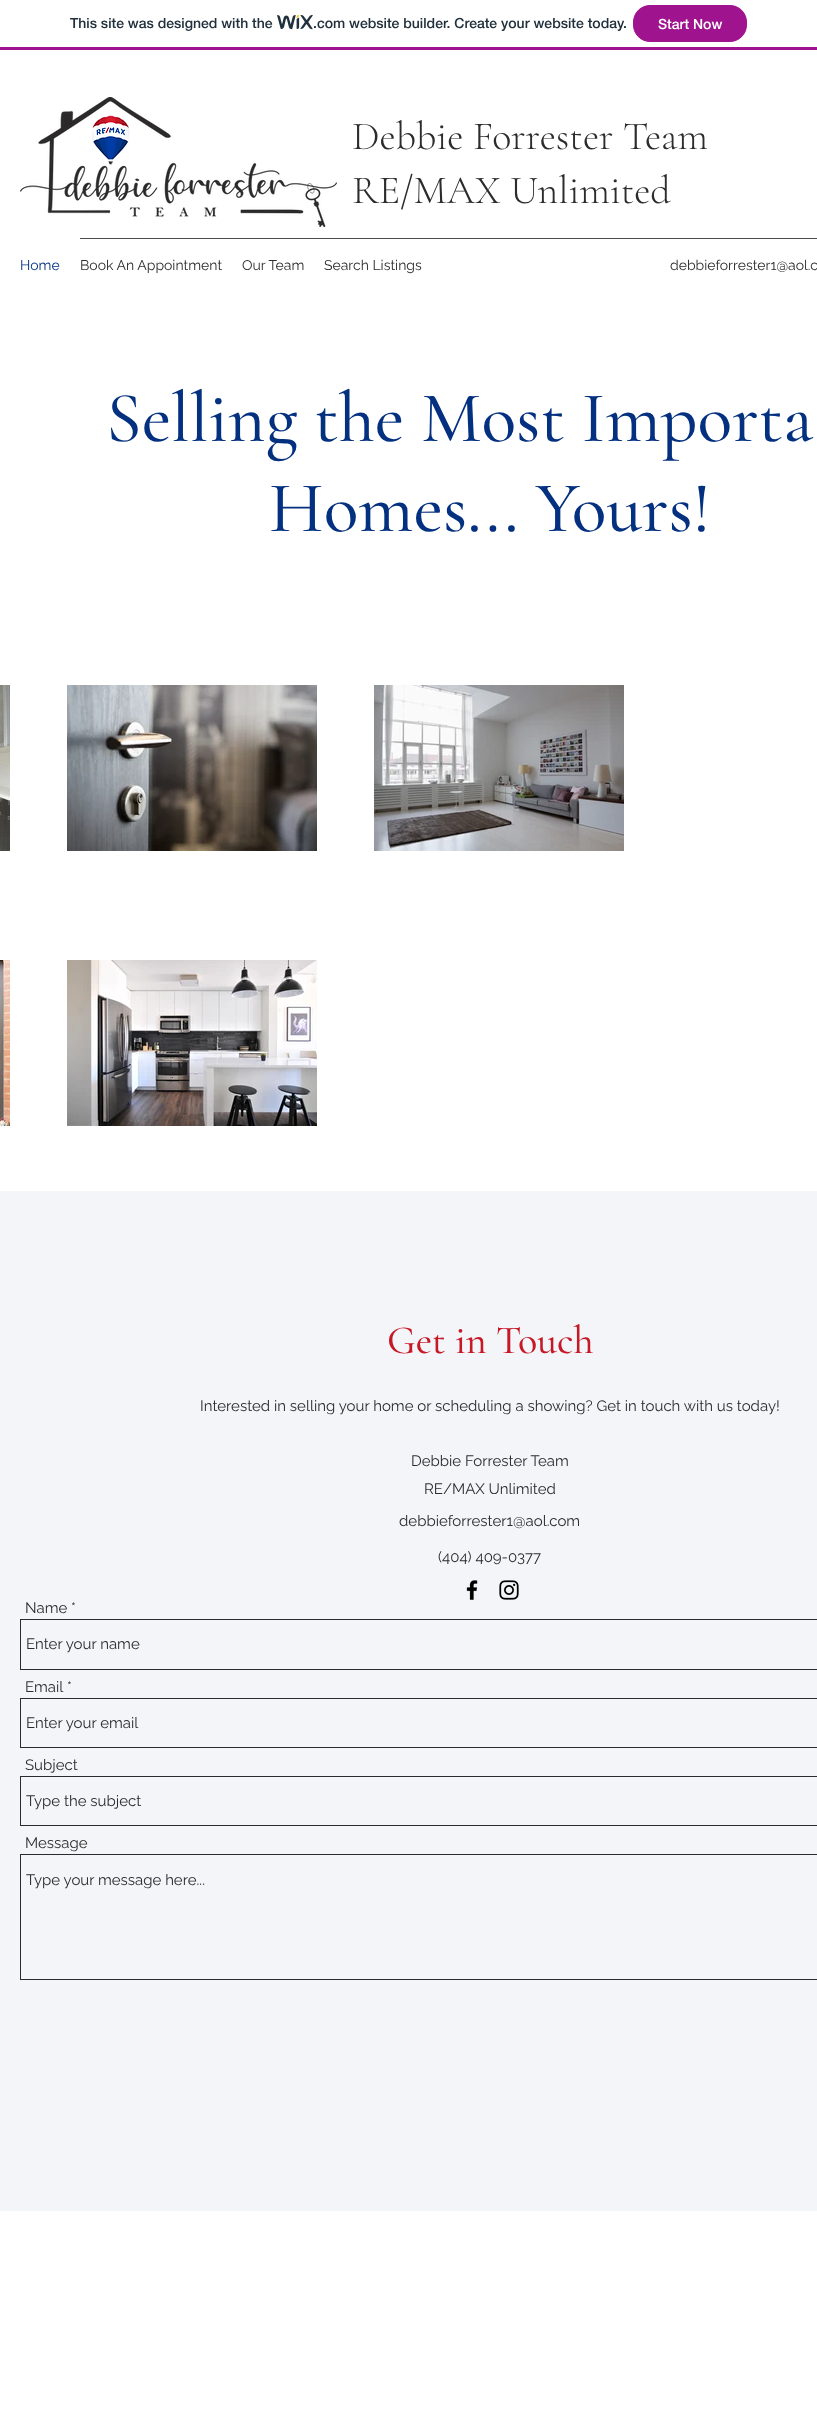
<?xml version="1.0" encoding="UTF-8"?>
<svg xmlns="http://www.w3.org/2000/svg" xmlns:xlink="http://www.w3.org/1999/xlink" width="817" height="2425">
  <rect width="100%" height="100%" fill="#ffffff" />
  <rect y="47" width="817" height="3" fill="#a0138e" />
  <image x="277" y="15" width="36" height="15" xlink:href="image1.png" />
  <rect x="633.5" y="5.5" width="113" height="36" rx="16.5" fill="#a0138e" stroke="#a0138e" />
  <image x="20" y="97" width="317" height="130" xlink:href="image2.png" />
  <rect x="80" y="238" width="737" height="1" fill="#4c4c4c" />
  <image x="0" y="685" width="10" height="166" xlink:href="image3.png" />
  <image x="67" y="685" width="250" height="166" xlink:href="image4.png" />
  <image x="374" y="685" width="250" height="166" xlink:href="image5.png" />
  <image x="0" y="960" width="10" height="166" xlink:href="image6.png" />
  <image x="67" y="960" width="250" height="166" xlink:href="image7.png" />
  <rect y="1191" width="817" height="1020" fill="#f3f5f8" />
  <image x="466" y="1580" width="12" height="20" xlink:href="image8.png" />
  <image x="499" y="1580" width="20" height="20" xlink:href="image9.png" />
  <rect x="20.5" y="1619.5" width="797" height="50" fill="none" stroke="#2c2c2c" />
  <rect x="20.5" y="1698.5" width="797" height="49" fill="none" stroke="#2c2c2c" />
  <rect x="20.5" y="1776.5" width="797" height="49" fill="none" stroke="#2c2c2c" />
  <rect x="20.5" y="1854.5" width="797" height="125" fill="none" stroke="#2c2c2c" />
  <text x="70" y="28" style="font-family: 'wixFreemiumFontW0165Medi'; font-size: 14px; font-weight: 500; fill: #20303c">This site was designed with the</text>
  <text x="313" y="28" style="font-family: 'wixFreemiumFontW0165Medi'; font-size: 14px; font-weight: 500; fill: #20303c">.com website builder. Create your website today.</text>
  <text x="658" y="29" style="font-family: 'wixFreemiumFontW0165Medi'; font-size: 14px; font-weight: 500; fill: #ffffff">Start Now</text>
  <text x="352" y="149" style="font-family: Cormorant Garamond; font-size: 40px; font-weight: 300; fill: #2c2c2c">Debbie Forrester Team</text>
  <text x="352" y="203" style="font-family: Cormorant Garamond; font-size: 40px; font-weight: 300; fill: #2c2c2c">RE/MAX Unlimited</text>
  <text x="20" y="270" style="font-family: Raleway; font-size: 14px; fill: #043080">Home</text>
  <text x="80" y="270" style="font-family: Raleway; font-size: 14px; fill: #2c2c2c">Book An Appointment</text>
  <text x="242" y="270" style="font-family: Raleway; font-size: 14px; fill: #2c2c2c">Our Team</text>
  <text x="324" y="270" style="font-family: Raleway; font-size: 14px; fill: #2c2c2c">Search Listings</text>
  <text x="670" y="270" style="font-family: Raleway; font-size: 14px; fill: #2c2c2c">debbieforrester1@aol.c</text>
  <text x="106" y="441" style="font-family: Cormorant Garamond; font-size: 72px; font-weight: 500; fill: #043080">Selling the Most Importa</text>
  <text x="269" y="531" style="font-family: Cormorant Garamond; font-size: 72px; font-weight: 500; fill: #043080">Homes... Yours!</text>
  <text x="387" y="1353" style="font-family: Cormorant Garamond; font-size: 40px; font-weight: 500; fill: #c61827">Get in Touch</text>
  <text x="200" y="1411" style="font-family: Raleway; font-size: 15px; fill: #2c2c2c">Interested in selling your home or scheduling a showing? Get in touch with us today!</text>
  <text x="411" y="1466" style="font-family: Raleway; font-size: 15px; fill: #2c2c2c">Debbie Forrester Team</text>
  <text x="424" y="1494" style="font-family: Raleway; font-size: 15px; fill: #2c2c2c">RE/MAX Unlimited</text>
  <text x="399" y="1526" style="font-family: Raleway; font-size: 15px; fill: #2c2c2c">debbieforrester1@aol.com</text>
  <text x="438" y="1562" style="font-family: Raleway; font-size: 15px; fill: #2c2c2c">(404) 409-0377</text>
  <text x="25" y="1613" style="font-family: Raleway; font-size: 15px; fill: #2c2c2c">Name *</text>
  <text x="26" y="1649" style="font-family: Raleway; font-size: 15px; fill: #2c2c2c">Enter your name</text>
  <text x="25" y="1692" style="font-family: Raleway; font-size: 15px; fill: #2c2c2c">Email</text>
  <text x="67" y="1692" style="font-family: Raleway; font-size: 15px; fill: #2c2c2c">*</text>
  <text x="26" y="1728" style="font-family: Raleway; font-size: 15px; fill: #2c2c2c">Enter your email</text>
  <text x="25" y="1770" style="font-family: Raleway; font-size: 15px; fill: #2c2c2c">Subject</text>
  <text x="26" y="1806" style="font-family: Raleway; font-size: 15px; fill: #2c2c2c">Type the subject</text>
  <text x="25" y="1848" style="font-family: Raleway; font-size: 15px; fill: #2c2c2c">Message</text>
  <text x="26" y="1885" style="font-family: Raleway; font-size: 15px; fill: #2c2c2c">Type your message here...</text>
</svg>
